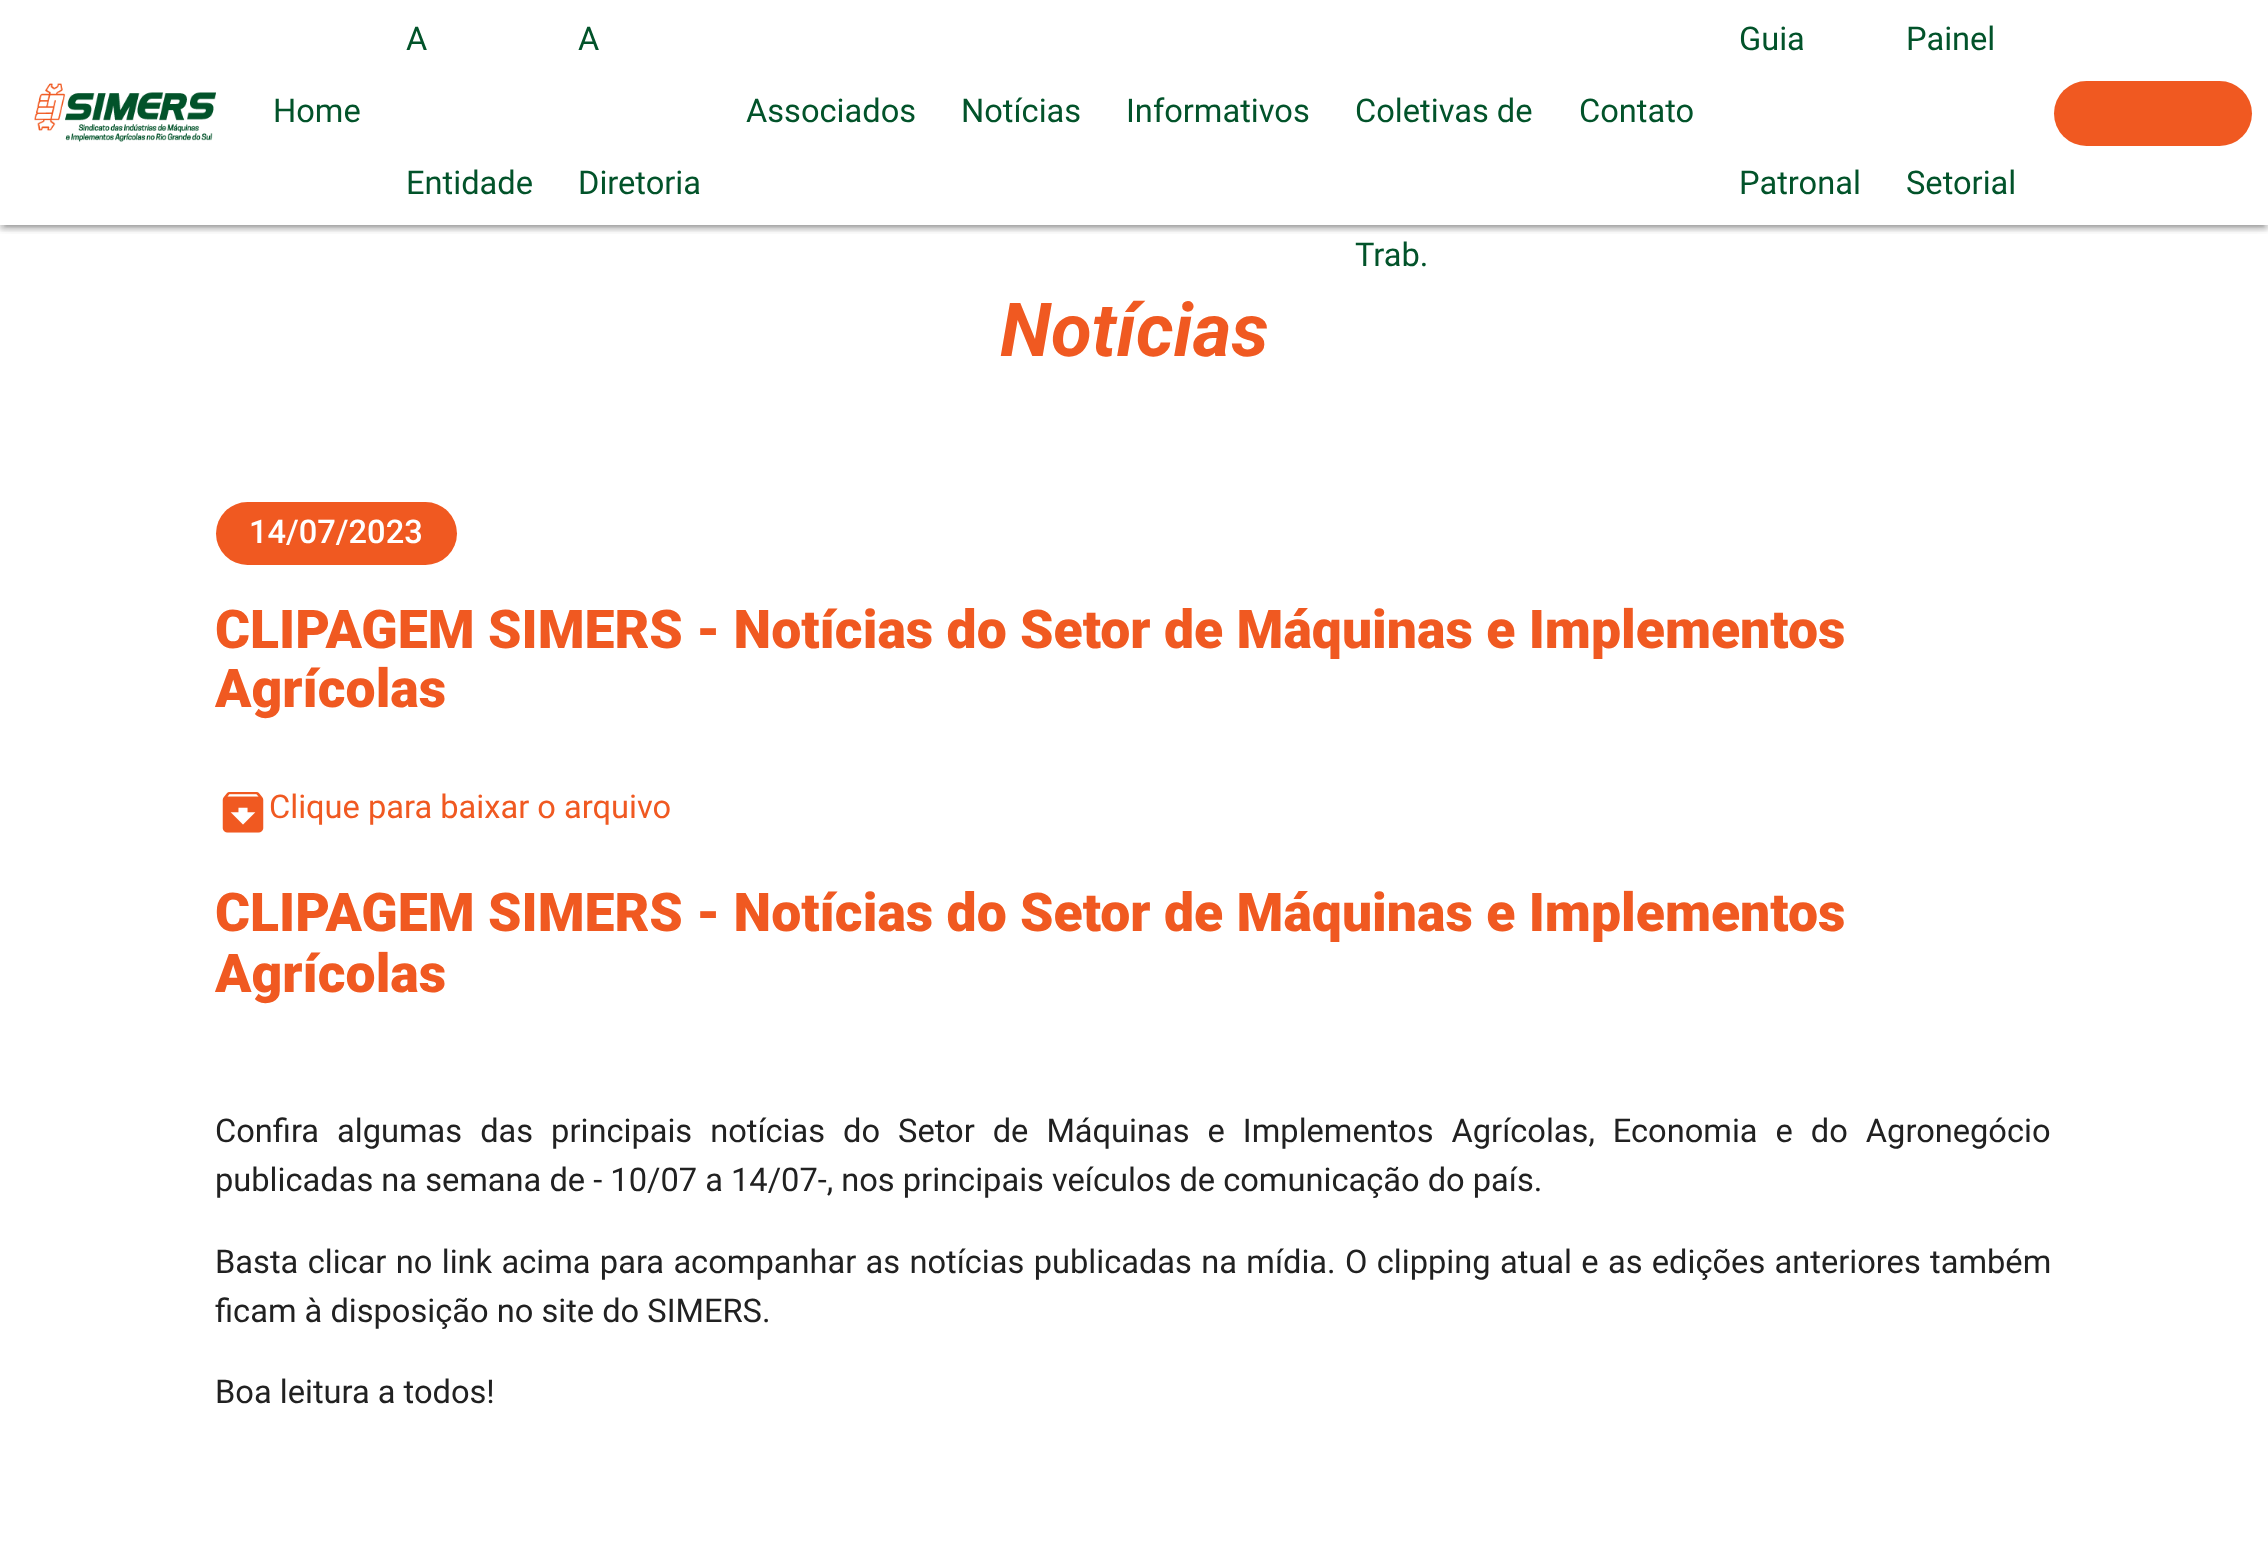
<?xml version="1.0" encoding="UTF-8"?>
<svg xmlns="http://www.w3.org/2000/svg" xmlns:xlink="http://www.w3.org/1999/xlink" width="2268" height="1551">
  <defs>
    <clipPath id="clip1"><rect x="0" y="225" width="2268" height="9" /></clipPath>
    <clipPath id="clip2"><rect x="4" y="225" width="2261" height="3" /></clipPath>
    <clipPath id="clip3"><rect x="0" y="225" width="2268" height="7" /></clipPath>
  </defs>
  <rect width="100%" height="100%" fill="#ffffff" />
  <g clip-path="url(#clip1)">
    <rect y="2" width="2268" height="225" fill="#000000" fill-opacity="0.2" filter="blur(5.5px)" />
  </g>
  <g clip-path="url(#clip2)">
    <rect x="5" y="11" width="2259" height="216" fill="#000000" fill-opacity="0.12" filter="blur(1px)" />
  </g>
  <g clip-path="url(#clip3)">
    <rect y="5" width="2268" height="225" fill="#000000" fill-opacity="0.14" filter="blur(2px)" />
  </g>
  <image x="34" y="83" width="182" height="59" xlink:href="image1.png" />
  <rect x="2054" y="81" width="198" height="65" rx="32.5" fill="#f05921" />
  <rect x="216" y="502" width="241" height="63" rx="31.5" fill="#f05921" />
  <image x="222" y="792" width="42" height="41" xlink:href="image2.png" />
  <text x="273" y="122" style="font-family: Roboto; font-size: 32.62px; fill: #02532a">Home</text>
  <text x="406" y="50" style="font-family: Roboto; font-size: 32.62px; fill: #02532a">A</text>
  <text x="406" y="194" style="font-family: Roboto; font-size: 32.62px; fill: #02532a">Entidade</text>
  <text x="578" y="50" style="font-family: Roboto; font-size: 32.62px; fill: #02532a">A</text>
  <text x="578" y="194" style="font-family: Roboto; font-size: 32.62px; fill: #02532a">Diretoria</text>
  <text x="746" y="122" style="font-family: Roboto; font-size: 32.62px; fill: #02532a">Associados</text>
  <text x="961" y="122" style="font-family: Roboto; font-size: 32.62px; fill: #02532a">Notícias</text>
  <text x="1126" y="122" style="font-family: Roboto; font-size: 32.62px; fill: #02532a">Informativos</text>
  <text x="1355" y="122" style="font-family: Roboto; font-size: 32.62px; fill: #02532a">Coletivas de</text>
  <text x="1355" y="266" style="font-family: Roboto; font-size: 32.62px; fill: #02532a">Trab.</text>
  <text x="1579" y="122" style="font-family: Roboto; font-size: 32.62px; fill: #02532a">Contato</text>
  <text x="1739" y="50" style="font-family: Roboto; font-size: 32.62px; fill: #02532a">Guia</text>
  <text x="1739" y="194" style="font-family: Roboto; font-size: 32.62px; fill: #02532a">Patronal</text>
  <text x="1906" y="50" style="font-family: Roboto; font-size: 32.62px; fill: #02532a">Painel</text>
  <text x="1906" y="194" style="font-family: Roboto; font-size: 32.62px; fill: #02532a">Setorial</text>
  <text x="1000" y="356" style="font-family: Roboto; font-size: 74.5px; font-weight: bold; font-style: italic; fill: #f05921">Notícias</text>
  <text x="249" y="543" style="font-family: Roboto; font-size: 32.62px; font-weight: 500; fill: #ffffff">14/07/2023</text>
  <text x="215" y="648" style="font-family: Roboto; font-size: 53.5px; font-weight: 900; fill: #f05921">CLIPAGEM SIMERS - Notícias do Setor de Máquinas e Implementos</text>
  <text x="215" y="707" style="font-family: Roboto; font-size: 53.5px; font-weight: 900; fill: #f05921">Agrícolas</text>
  <text x="269" y="818" style="font-family: Roboto; font-size: 32.62px; fill: #f05921">Clique para baixar o arquivo</text>
  <text x="215" y="931" style="font-family: Roboto; font-size: 53.5px; font-weight: 900; fill: #f05921">CLIPAGEM SIMERS - Notícias do Setor de Máquinas e Implementos</text>
  <text x="215" y="992" style="font-family: Roboto; font-size: 53.5px; font-weight: 900; fill: #f05921">Agrícolas</text>
  <text x="215" y="1142" word-spacing="9.9" style="font-family: Roboto; font-size: 32.62px; fill: #212121">Confira algumas das principais notícias do Setor de Máquinas e Implementos Agrícolas, Economia e do Agronegócio</text>
  <text x="215" y="1191" style="font-family: Roboto; font-size: 32.62px; fill: #212121">publicadas na semana de - 10/07 a 14/07-, nos principais veículos de comunicação do país.</text>
  <text x="215" y="1273" word-spacing="1.25" style="font-family: Roboto; font-size: 32.62px; fill: #212121">Basta clicar no link acima para acompanhar as notícias publicadas na mídia. O clipping atual e as edições anteriores também</text>
  <text x="215" y="1322" style="font-family: Roboto; font-size: 32.62px; fill: #212121">ficam à disposição no site do SIMERS.</text>
  <text x="215" y="1403" style="font-family: Roboto; font-size: 32.62px; fill: #212121">Boa leitura a todos!</text>
</svg>
